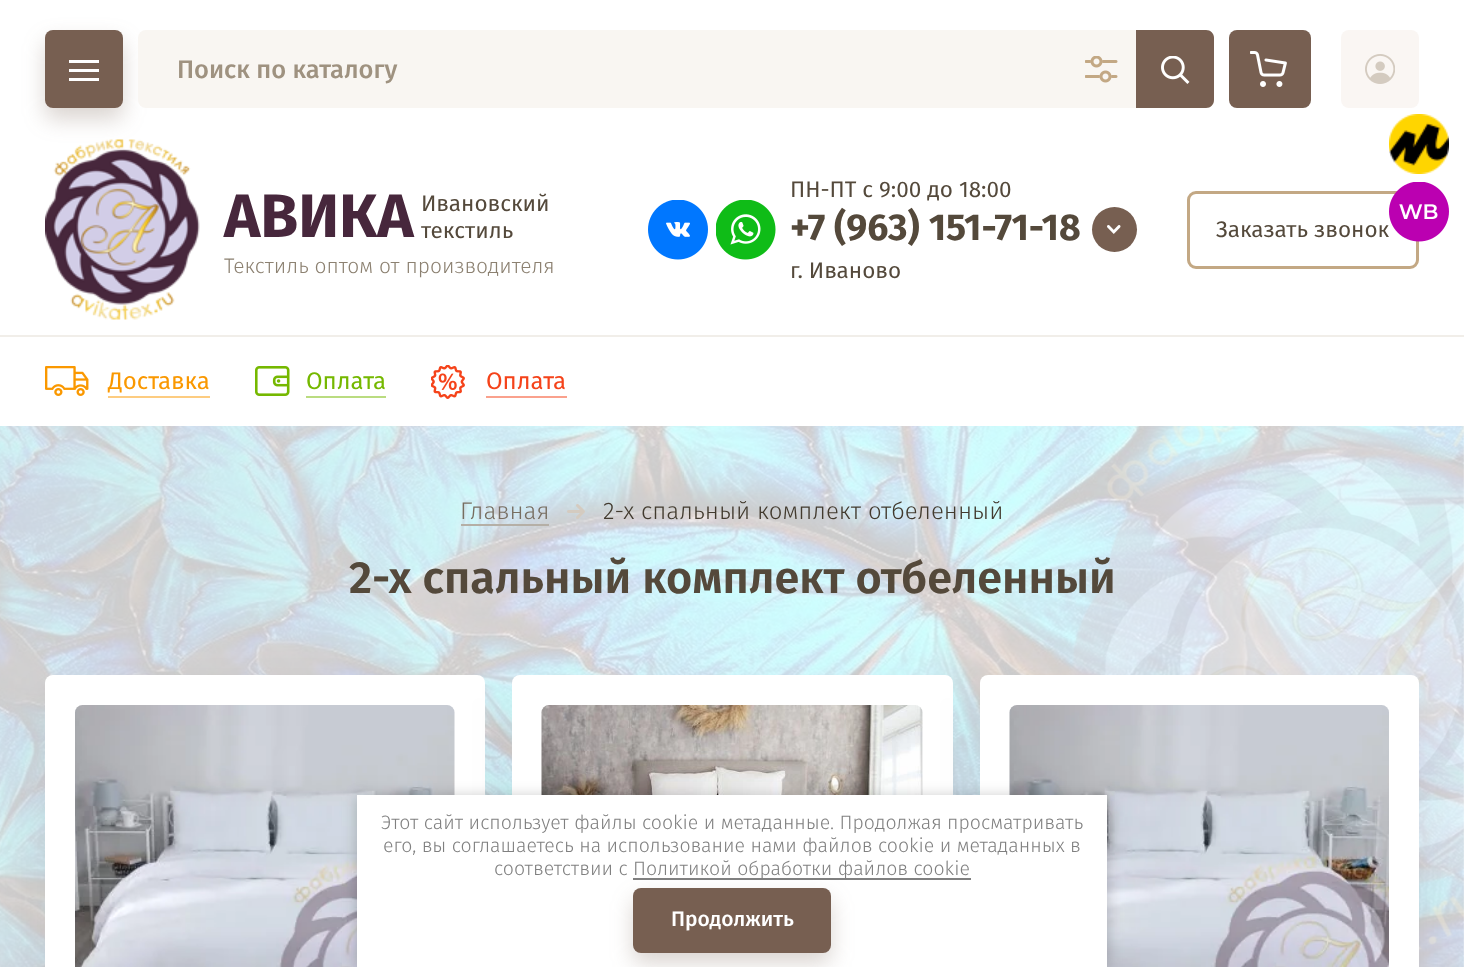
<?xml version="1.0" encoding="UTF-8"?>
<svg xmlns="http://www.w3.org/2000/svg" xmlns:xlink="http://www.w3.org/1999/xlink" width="1464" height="967">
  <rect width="100%" height="100%" fill="#ffffff" />
  <image x="45" y="139" width="155" height="181" xlink:href="image6.png" />
  <rect x="45" y="41" width="78" height="78" rx="8" fill="#775f51" fill-opacity="0.27" filter="blur(11px)" />
  <rect x="45" y="30" width="78" height="78" rx="8" fill="#775f51" />
  <image x="69" y="60" width="30" height="21" xlink:href="image1.png" />
  <rect x="138" y="30" width="1076" height="78" rx="8" fill="#f9f6f2" />
  <image x="1085" y="56" width="33" height="27" xlink:href="image2.png" />
  <path d="M 1136 30 h 70 c 4.5 0 8 3.5 8 8 v 62 c 0 4.5 -3.5 8 -8 8 h -70 z" fill="#775f51" />
  <image x="1161" y="56" width="29" height="28" xlink:href="image3.png" />
  <rect x="1229" y="30" width="82" height="78" rx="8" fill="#775f51" />
  <image x="1250" y="51" width="37" height="36" xlink:href="image4.png" />
  <rect x="1341" y="30" width="78" height="78" rx="8" fill="#faf6f3" />
  <image x="1365" y="54" width="30" height="30" xlink:href="image5.png" />
  <image x="648" y="200" width="60" height="60" xlink:href="image7.png" />
  <image x="716" y="200" width="60" height="60" xlink:href="image8.png" />
  <circle cx="1114.5" cy="229.5" r="22.5" fill="#775f51" />
  <image x="1107" y="225" width="14" height="9" xlink:href="image9.png" />
  <rect x="1188.5" y="192.5" width="229" height="75" rx="7.5" fill="none" stroke="#c3a884" stroke-width="3" />
  <rect y="335" width="1464" height="2" fill="#f1eee9" />
  <image x="45" y="366" width="44" height="30" xlink:href="image10.png" />
  <rect x="108" y="396" width="102" height="2" fill="#fdcc80" />
  <image x="255" y="366" width="35" height="30" xlink:href="image11.png" />
  <rect x="306" y="396" width="80" height="2" fill="#badc80" />
  <image x="431" y="365" width="34" height="34" xlink:href="image12.png" />
  <rect x="486" y="396" width="81" height="2" fill="#faa18d" />
  <image x="0" y="426" width="1464" height="541" xlink:href="image19.png" />
  <rect x="461" y="524" width="88" height="2" fill="#b5afa6" />
  <image x="567" y="504" width="18" height="15" xlink:href="image13.png" />
  <rect x="45" y="698" width="440" height="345" rx="8" fill="#000000" fill-opacity="0.07" filter="blur(22.5px)" />
  <rect x="45" y="675" width="440" height="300" rx="8" fill="#ffffff" />
  <image x="75" y="705" width="380" height="262" xlink:href="image14.png" />
  <rect x="512" y="698" width="441" height="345" rx="8" fill="#000000" fill-opacity="0.07" filter="blur(22.5px)" />
  <rect x="512" y="675" width="441" height="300" rx="8" fill="#ffffff" />
  <image x="541" y="705" width="382" height="90" xlink:href="image15.png" />
  <rect x="980" y="698" width="439" height="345" rx="8" fill="#000000" fill-opacity="0.07" filter="blur(22.5px)" />
  <rect x="980" y="675" width="439" height="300" rx="8" fill="#ffffff" />
  <image x="1009" y="705" width="380" height="262" xlink:href="image16.png" />
  <image x="1389" y="114" width="60" height="60" xlink:href="image17.png" />
  <image x="1389" y="182" width="60" height="60" xlink:href="image18.png" />
  <rect x="357" y="797" width="750" height="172" fill="#000000" fill-opacity="0.23" filter="blur(7.5px)" />
  <rect x="357" y="795" width="750" height="172" fill="#ffffff" />
  <rect x="633" y="878" width="338" height="2" fill="#808080" />
  <rect x="633" y="899" width="198" height="64" rx="8" fill="#775f51" fill-opacity="0.27" filter="blur(11px)" />
  <rect x="633" y="888" width="198" height="65" rx="8" fill="#775f51" />
  <text x="177" y="78" style="font-family: Fira Sans; font-size: 25.5px; font-weight: 500; fill: #9f9280">Поиск по каталогу</text>
  <text x="224" y="237" style="font-family: Fira Sans; font-size: 61.5px; font-weight: bold; fill: #47273c">АВИКА</text>
  <text x="421" y="211" style="font-family: Fira Sans; font-size: 22.5px; fill: #54493b">Ивановский</text>
  <text x="421" y="238" style="font-family: Fira Sans; font-size: 22.5px; fill: #54493b">текстиль</text>
  <text x="224" y="273" style="font-family: Fira Sans; font-size: 21px; font-weight: 300; fill: #8c8171">Текстиль оптом от производителя</text>
  <text x="790" y="197" style="font-family: Fira Sans; font-size: 22.5px; fill: #54493b">ПН-ПТ с 9:00 до 18:00</text>
  <text x="790" y="240" style="font-family: Fira Sans; font-size: 37.5px; font-weight: bold; fill: #54493b">+7 (963) 151-71-18</text>
  <text x="790" y="278" style="font-family: Fira Sans; font-size: 22.5px; fill: #54493b">г. Иваново</text>
  <text x="1216" y="237" style="font-family: Fira Sans; font-size: 22.5px; fill: #54493b">Заказать звонок</text>
  <text x="108" y="389" style="font-family: Fira Sans; font-size: 24px; fill: #fa9800">Доставка</text>
  <text x="306" y="389" style="font-family: Fira Sans; font-size: 24px; fill: #75b800">Оплата</text>
  <text x="486" y="389" style="font-family: Fira Sans; font-size: 24px; fill: #f5431a">Оплата</text>
  <text x="460" y="519" style="font-family: Fira Sans; font-size: 24px; font-weight: 300; fill: #776d60">Главная</text>
  <text x="603" y="519" style="font-family: Fira Sans; font-size: 24px; font-weight: 300; fill: #423a2e">2-х спальный комплект отбеленный</text>
  <text x="349" y="593" style="font-family: Fira Sans; font-size: 45px; font-weight: 600; fill: #54493b">2-х спальный комплект отбеленный</text>
  <text x="381" y="829" style="font-family: Fira Sans; font-size: 19.5px; font-weight: 300; fill: #808080">Этот сайт использует файлы cookie и метаданные. Продолжая просматривать</text>
  <text x="383" y="852" style="font-family: Fira Sans; font-size: 19.5px; font-weight: 300; fill: #808080">его, вы соглашаетесь на использование нами файлов cookie и метаданных в</text>
  <text x="494" y="875" style="font-family: Fira Sans; font-size: 19.5px; font-weight: 300; fill: #808080">соответствии с</text>
  <text x="633" y="875" style="font-family: Fira Sans; font-size: 19.5px; font-weight: 300; fill: #808080">Политикой обработки файлов cookie</text>
  <text x="671" y="926" style="font-family: Fira Sans; font-size: 21px; font-weight: 500; fill: #ffffff">Продолжить</text>
</svg>
